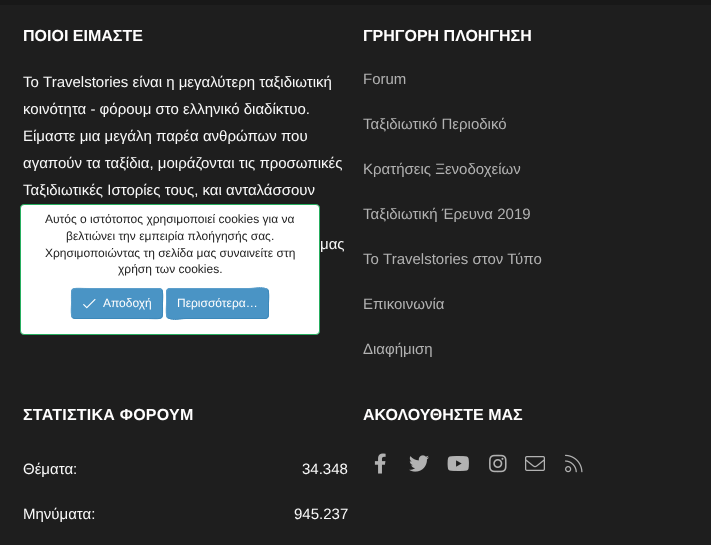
<?xml version="1.0" encoding="UTF-8"?>
<svg xmlns="http://www.w3.org/2000/svg" xmlns:xlink="http://www.w3.org/1999/xlink" width="711" height="545">
  <rect width="100%" height="100%" fill="#181818" />
  <rect y="5" width="711" height="540" fill="#1e1e1e" />
  <image x="374" y="453" width="12" height="21" xlink:href="image1.png" />
  <image x="409" y="455" width="20" height="17" xlink:href="image2.png" />
  <image x="447" y="456" width="22" height="15" xlink:href="image3.png" />
  <image x="489" y="454" width="18" height="19" xlink:href="image4.png" />
  <image x="525" y="456" width="20" height="15" xlink:href="image5.png" />
  <image x="565" y="454" width="18" height="19" xlink:href="image6.png" />
  <rect x="20.5" y="204.5" width="299" height="130" rx="3.5" fill="#ffffff" stroke="#27ae60" />
  <rect x="71" y="288" width="92" height="31" rx="4" fill="#4a94c5" />
  <path d="M 161.5 289.5 c 2 2.5 1 11 1 14 c 0 18 2 15 -17.5 15 h -70 l -2.5 -1" fill="none" stroke="#3c88ba" />
  <path d="M 72.5 317.5 c -2 -2.5 -1 -11 -1 -14 c 0 -18 -2 -15 17.5 -15 h 70 l 2.5 1" fill="none" stroke="#5d9fcb" />
  <image x="83" y="298" width="13" height="11" xlink:href="image7.png" />
  <rect x="166" y="288" width="103" height="31" rx="4" fill="#4a94c5" />
  <path d="M 267.5 289.5 c 2 2.5 1 11 1 14 v 7.5 c 0 3 0.5 7.5 -3.5 7.5 h -79 c -6 0 -12.5 2.5 -17.5 -0.5 l -1 -0.5" fill="none" stroke="#3c88ba" />
  <path d="M 167.5 317.5 c -2 -2.5 -1 -11 -1 -14 v -7.5 c 0 -3 -0.5 -7.5 3.5 -7.5 h 79 c 6 0 12.5 -2.5 17.5 0.5 l 1 0.5" fill="none" stroke="#5d9fcb" />
  <text x="23" y="41" style="font-family: Liberation Sans; font-size: 16px; font-weight: bold; fill: #fffefe">ΠΟΙΟΙ ΕΙΜΑΣΤΕ</text>
  <text x="23" y="87" style="font-family: Liberation Sans; font-size: 15px; fill: #f9f9f9">Το Travelstories είναι η μεγαλύτερη ταξιδιωτική</text>
  <text x="23" y="114" style="font-family: Liberation Sans; font-size: 15px; fill: #f9f9f9">κοινότητα - φόρουμ στο ελληνικό διαδίκτυο.</text>
  <text x="23" y="141" style="font-family: Liberation Sans; font-size: 15px; fill: #f9f9f9">Είμαστε μια μεγάλη παρέα ανθρώπων που</text>
  <text x="23" y="168" style="font-family: Liberation Sans; font-size: 15px; fill: #f9f9f9">αγαπούν τα ταξίδια, μοιράζονται τις προσωπικές</text>
  <text x="23" y="195" style="font-family: Liberation Sans; font-size: 15px; fill: #f9f9f9">Ταξιδιωτικές Ιστορίες τους, και ανταλάσσουν</text>
  <text x="320" y="249" style="font-family: Liberation Sans; font-size: 15px; fill: #f9f9f9">μας</text>
  <text x="363" y="41" style="font-family: Liberation Sans; font-size: 16px; font-weight: bold; fill: #fffefe">ΓΡΗΓΟΡΗ ΠΛΟΗΓΗΣΗ</text>
  <text x="363" y="84" style="font-family: Liberation Sans; font-size: 15px; fill: #b2b2b2">Forum</text>
  <text x="363" y="129" style="font-family: Liberation Sans; font-size: 15px; fill: #b2b2b2">Ταξιδιωτικό Περιοδικό</text>
  <text x="363" y="174" style="font-family: Liberation Sans; font-size: 15px; fill: #b2b2b2">Κρατήσεις Ξενοδοχείων</text>
  <text x="363" y="219" style="font-family: Liberation Sans; font-size: 15px; fill: #b2b2b2">Ταξιδιωτική Έρευνα 2019</text>
  <text x="363" y="264" style="font-family: Liberation Sans; font-size: 15px; fill: #b2b2b2">Το Travelstories στον Τύπο</text>
  <text x="363" y="309" style="font-family: Liberation Sans; font-size: 15px; fill: #b2b2b2">Επικοινωνία</text>
  <text x="363" y="354" style="font-family: Liberation Sans; font-size: 15px; fill: #b2b2b2">Διαφήμιση</text>
  <text x="23" y="420" style="font-family: Liberation Sans; font-size: 16px; font-weight: bold; letter-spacing: 0.25px; fill: #fffefe">ΣΤΑΤΙΣΤΙΚΑ ΦΟΡΟΥΜ</text>
  <text x="23" y="474" style="font-family: Liberation Sans; font-size: 15px; fill: #f9f9f9">Θέματα:</text>
  <text x="302" y="474" style="font-family: Liberation Sans; font-size: 15px; fill: #f9f9f9">34.348</text>
  <text x="23" y="519" style="font-family: Liberation Sans; font-size: 15px; fill: #f9f9f9">Μηνύματα:</text>
  <text x="294" y="519" style="font-family: Liberation Sans; font-size: 15px; fill: #f9f9f9">945.237</text>
  <text x="363" y="420" style="font-family: Liberation Sans; font-size: 16px; font-weight: bold; fill: #fffefe">ΑΚΟΛΟΥΘΗΣΤΕ ΜΑΣ</text>
  <text x="45" y="223" style="font-family: Liberation Sans; font-size: 12px; fill: #1d1d1d">Αυτός ο ιστότοπος χρησιμοποιεί cookies για να</text>
  <text x="66" y="240" style="font-family: Liberation Sans; font-size: 12px; fill: #1d1d1d">βελτιώνει την εμπειρία πλοήγησής σας.</text>
  <text x="45" y="257" style="font-family: Liberation Sans; font-size: 12px; fill: #1d1d1d">Χρησιμοποιώντας τη σελίδα μας συναινείτε στη</text>
  <text x="118" y="273" style="font-family: Liberation Sans; font-size: 12px; fill: #1d1d1d">χρήση των cookies.</text>
  <text x="103" y="307" style="font-family: Liberation Sans; font-size: 12px; fill: #fffefe">Αποδοχή</text>
  <text x="177" y="307" style="font-family: Liberation Sans; font-size: 12px; fill: #fffefe">Περισσότερα…</text>
</svg>
